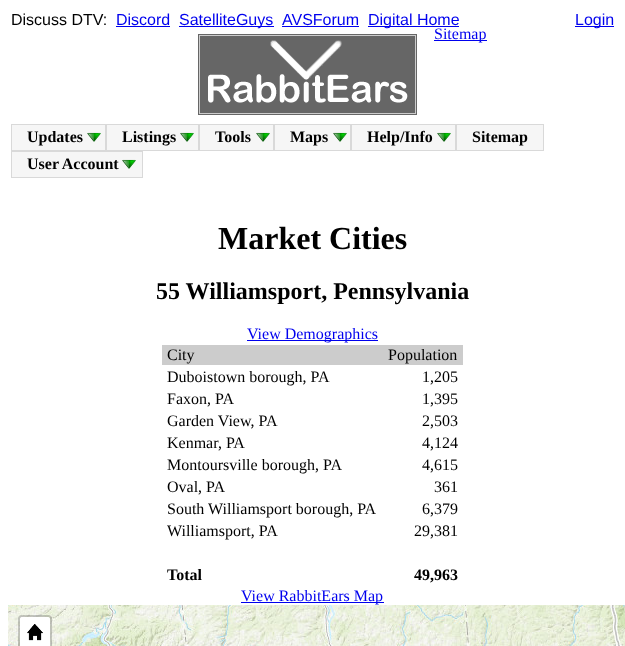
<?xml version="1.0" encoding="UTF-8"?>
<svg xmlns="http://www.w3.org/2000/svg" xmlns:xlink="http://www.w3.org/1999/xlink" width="625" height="646">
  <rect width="100%" height="100%" fill="#ffffff" />
  <rect x="116" y="26" width="54" height="1" fill="#0000ee" />
  <rect x="179" y="26" width="95" height="1" fill="#0000ee" />
  <rect x="282" y="26" width="77" height="1" fill="#0000ee" />
  <rect x="368" y="26" width="91" height="1" fill="#0000ee" />
  <rect x="575" y="26" width="39" height="1" fill="#0000ee" />
  <rect x="199.5" y="35.5" width="216" height="78" fill="none" stroke="#cccccc" />
  <image x="200" y="36" width="215" height="77" xlink:href="image1.png" />
  <rect x="198.5" y="34.5" width="218" height="80" fill="none" stroke="#666666" />
  <rect x="434" y="40" width="53" height="1" fill="#0000ee" />
  <rect x="12" y="125" width="93" height="25" fill="#f6f6f6" />
  <image x="87" y="132" width="14" height="10" xlink:href="image2.png" />
  <rect x="11.5" y="124.5" width="94" height="26" fill="none" stroke="#d9d9d9" />
  <rect x="107" y="125" width="91" height="25" fill="#f6f6f6" />
  <image x="180" y="132" width="14" height="10" xlink:href="image2.png" />
  <rect x="106.5" y="124.5" width="92" height="26" fill="none" stroke="#d9d9d9" />
  <rect x="200" y="125" width="73" height="25" fill="#f6f6f6" />
  <image x="256" y="132" width="14" height="10" xlink:href="image2.png" />
  <rect x="199.5" y="124.5" width="74" height="26" fill="none" stroke="#d9d9d9" />
  <rect x="275" y="125" width="75" height="25" fill="#f6f6f6" />
  <image x="333" y="132" width="14" height="10" xlink:href="image2.png" />
  <rect x="274.5" y="124.5" width="76" height="26" fill="none" stroke="#d9d9d9" />
  <rect x="352" y="125" width="103" height="25" fill="#f6f6f6" />
  <image x="437" y="132" width="14" height="10" xlink:href="image2.png" />
  <rect x="351.5" y="124.5" width="104" height="26" fill="none" stroke="#d9d9d9" />
  <rect x="456.5" y="124.5" width="87" height="26" fill="#f6f6f6" stroke="#d9d9d9" />
  <rect x="12" y="152" width="130" height="25" fill="#f6f6f6" />
  <image x="122" y="159" width="14" height="10" xlink:href="image2.png" />
  <rect x="11.5" y="151.5" width="131" height="26" fill="none" stroke="#d9d9d9" />
  <rect x="247" y="340" width="131" height="1" fill="#0000ee" />
  <rect x="162" y="345" width="301" height="20" fill="#cccccc" />
  <rect x="241" y="602" width="143" height="1" fill="#0000ee" />
  <image x="8" y="605" width="20" height="41" xlink:href="image3.png" />
  <image x="28" y="605" width="256" height="41" xlink:href="image4.png" />
  <image x="284" y="605" width="256" height="41" xlink:href="image5.png" />
  <image x="540" y="605" width="85" height="41" xlink:href="image6.png" />
  <rect x="19" y="616" width="32" height="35" rx="3" fill="none" stroke="#000000" stroke-opacity="0.2" stroke-width="2" />
  <path d="M 22 617 h 26 c 1 0 2 1 2 2 v 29 h -30 v -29 c 0 -1 1 -2 2 -2 z" fill="#ffffff" />
  <image x="27" y="624" width="16" height="17" xlink:href="image7.png" />
  <text x="11" y="25" style="font-family: Liberation Sans; font-size: 16px; fill: #000000">Discuss DTV:</text>
  <text x="116" y="25" style="font-family: Liberation Sans; font-size: 16px; fill: #0000ee">Discord</text>
  <text x="179" y="25" style="font-family: Liberation Sans; font-size: 16px; fill: #0000ee">SatelliteGuys</text>
  <text x="282" y="25" style="font-family: Liberation Sans; font-size: 16px; fill: #0000ee">AVSForum</text>
  <text x="368" y="25" style="font-family: Liberation Sans; font-size: 16px; fill: #0000ee">Digital Home</text>
  <text x="575" y="25" style="font-family: Liberation Sans; font-size: 16px; fill: #0000ee">Login</text>
  <text x="434" y="39" style="font-family: Liberation Serif; font-size: 16px; fill: #0000ee">Sitemap</text>
  <text x="27" y="142" style="font-family: Liberation Serif; font-size: 16px; font-weight: bold; fill: #000000">Updates</text>
  <text x="122" y="142" style="font-family: Liberation Serif; font-size: 16px; font-weight: bold; fill: #000000">Listings</text>
  <text x="215" y="142" style="font-family: Liberation Serif; font-size: 16px; font-weight: bold; fill: #000000">Tools</text>
  <text x="290" y="142" style="font-family: Liberation Serif; font-size: 16px; font-weight: bold; fill: #000000">Maps</text>
  <text x="367" y="142" style="font-family: Liberation Serif; font-size: 16px; font-weight: bold; fill: #000000">Help/Info</text>
  <text x="472" y="142" style="font-family: Liberation Serif; font-size: 16px; font-weight: bold; fill: #000000">Sitemap</text>
  <text x="27" y="169" style="font-family: Liberation Serif; font-size: 16px; font-weight: bold; fill: #000000">User Account</text>
  <text x="218" y="249" style="font-family: Liberation Serif; font-size: 32px; font-weight: bold; fill: #000000">Market Cities</text>
  <text x="156" y="299" style="font-family: Liberation Serif; font-size: 24px; font-weight: bold; fill: #000000">55 Williamsport, Pennsylvania</text>
  <text x="247" y="339" style="font-family: Liberation Serif; font-size: 16px; fill: #0000ee">View Demographics</text>
  <text x="167" y="360" style="font-family: Liberation Serif; font-size: 16px; fill: #000000">City</text>
  <text x="388" y="360" style="font-family: Liberation Serif; font-size: 16px; fill: #000000">Population</text>
  <text x="167" y="382" style="font-family: Liberation Serif; font-size: 16px; fill: #000000">Duboistown borough, PA</text>
  <text x="422" y="382" style="font-family: Liberation Serif; font-size: 16px; fill: #000000">1,205</text>
  <text x="167" y="404" style="font-family: Liberation Serif; font-size: 16px; fill: #000000">Faxon, PA</text>
  <text x="422" y="404" style="font-family: Liberation Serif; font-size: 16px; fill: #000000">1,395</text>
  <text x="167" y="426" style="font-family: Liberation Serif; font-size: 16px; fill: #000000">Garden View, PA</text>
  <text x="422" y="426" style="font-family: Liberation Serif; font-size: 16px; fill: #000000">2,503</text>
  <text x="167" y="448" style="font-family: Liberation Serif; font-size: 16px; fill: #000000">Kenmar, PA</text>
  <text x="422" y="448" style="font-family: Liberation Serif; font-size: 16px; fill: #000000">4,124</text>
  <text x="167" y="470" style="font-family: Liberation Serif; font-size: 16px; fill: #000000">Montoursville borough, PA</text>
  <text x="422" y="470" style="font-family: Liberation Serif; font-size: 16px; fill: #000000">4,615</text>
  <text x="167" y="492" style="font-family: Liberation Serif; font-size: 16px; fill: #000000">Oval, PA</text>
  <text x="434" y="492" style="font-family: Liberation Serif; font-size: 16px; fill: #000000">361</text>
  <text x="167" y="514" style="font-family: Liberation Serif; font-size: 16px; fill: #000000">South Williamsport borough, PA</text>
  <text x="422" y="514" style="font-family: Liberation Serif; font-size: 16px; fill: #000000">6,379</text>
  <text x="167" y="536" style="font-family: Liberation Serif; font-size: 16px; fill: #000000">Williamsport, PA</text>
  <text x="414" y="536" style="font-family: Liberation Serif; font-size: 16px; fill: #000000">29,381</text>
  <text x="167" y="580" style="font-family: Liberation Serif; font-size: 16px; font-weight: bold; fill: #000000">Total</text>
  <text x="414" y="580" style="font-family: Liberation Serif; font-size: 16px; font-weight: bold; fill: #000000">49,963</text>
  <text x="241" y="601" style="font-family: Liberation Serif; font-size: 16px; fill: #0000ee">View RabbitEars Map</text>
</svg>
